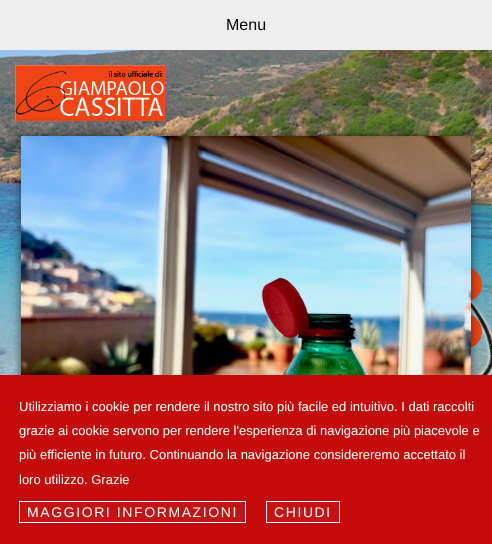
<?xml version="1.0" encoding="UTF-8"?>
<svg xmlns="http://www.w3.org/2000/svg" xmlns:xlink="http://www.w3.org/1999/xlink" width="492" height="544">
  <rect width="100%" height="100%" fill="#ffffff" />
  <rect width="492" height="50" fill="#eeeeee" />
  <image x="0" y="50" width="492" height="325" xlink:href="image1.png" />
  <image x="15" y="65" width="150" height="56" xlink:href="image2.png" />
  <image x="489" y="50" width="3" height="325" xlink:href="image3.png" />
  <circle cx="464.5" cy="284.5" r="17.5" fill="#f04416" />
  <circle cx="464.5" cy="331.5" r="17.5" fill="#f04416" />
  <rect x="20" y="135" width="452" height="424" fill="#000000" fill-opacity="0.5" filter="blur(5px)" />
  <image x="21" y="136" width="450" height="239" xlink:href="image4.png" />
  <rect y="375" width="492" height="169" fill="#c40b0b" />
  <rect x="19.5" y="501.5" width="226" height="21" fill="#c61212" stroke="#ffffff" />
  <rect x="266.5" y="501.5" width="73" height="21" fill="#c61212" stroke="#ffffff" />
  <text x="226" y="30" style="font-family: Liberation Sans; font-size: 16px; fill: #000000">Menu</text>
  <text x="19" y="411" style="font-family: Liberation Sans; font-size: 13px; fill: #ffffff">Utilizziamo i cookie per rendere il nostro sito più facile ed intuitivo. I dati raccolti</text>
  <text x="19" y="435" style="font-family: Liberation Sans; font-size: 13px; fill: #ffffff">grazie ai cookie servono per rendere l'esperienza di navigazione più piacevole e</text>
  <text x="19" y="459" style="font-family: Liberation Sans; font-size: 13px; fill: #ffffff">più efficiente in futuro. Continuando la navigazione considereremo accettato il</text>
  <text x="19" y="484" style="font-family: Liberation Sans; font-size: 13px; fill: #ffffff">loro utilizzo. Grazie</text>
  <text x="27" y="517" style="font-family: Liberation Sans; font-size: 14px; letter-spacing: 1.6px; fill: #ffffff">MAGGIORI INFORMAZIONI</text>
  <text x="274" y="517" style="font-family: Liberation Sans; font-size: 14px; letter-spacing: 1.6px; fill: #ffffff">CHIUDI</text>
</svg>
